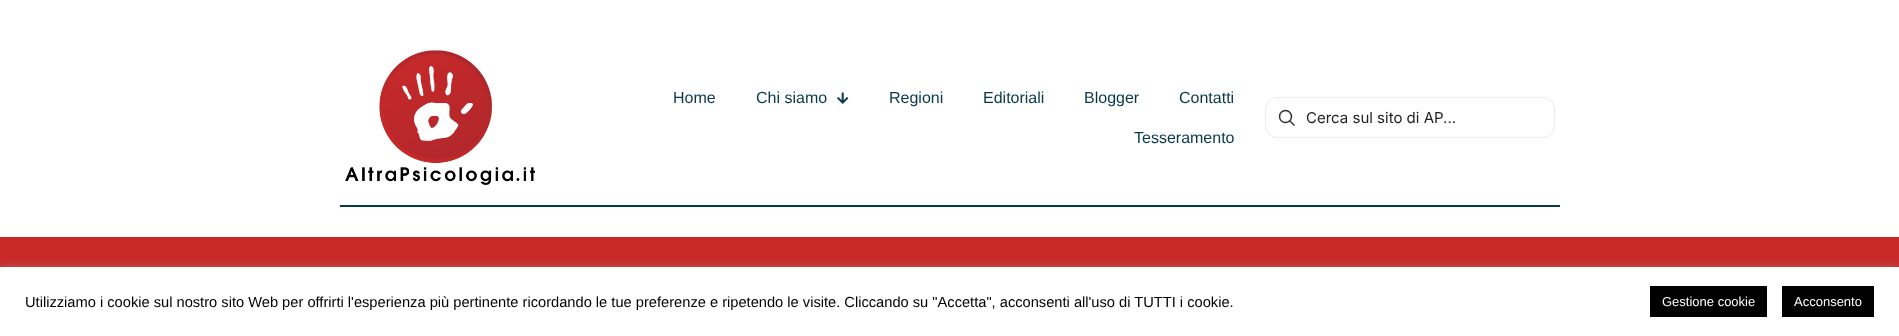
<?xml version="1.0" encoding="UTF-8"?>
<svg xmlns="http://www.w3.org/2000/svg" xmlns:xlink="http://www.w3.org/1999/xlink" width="1899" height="336">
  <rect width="100%" height="100%" fill="#ffffff" />
  <rect x="340" y="205" width="1220" height="2" fill="#08394a" />
  <image x="345" y="50" width="190" height="135" xlink:href="image1.png" />
  <image x="837" y="92" width="12" height="12" xlink:href="image2.png" />
  <rect x="1265.5" y="97.5" width="289" height="40" rx="11.5" fill="none" stroke="#ebebeb" />
  <circle cx="1285.5" cy="116.5" r="6" fill="none" stroke="#333333" stroke-width="1.5" />
  <path d="M 1289.5 120.5 l 5 5" fill="none" stroke="#333333" stroke-width="1.5" />
  <rect y="237" width="1899" height="30" fill="#c92929" />
  <rect y="266" width="1899" height="69" fill="#acabab" fill-opacity="0.3" filter="blur(5px)" />
  <rect y="267" width="1899" height="69" fill="#ffffff" />
  <rect x="1650" y="286" width="117" height="31" fill="#000000" />
  <rect x="1782" y="286" width="92" height="31" fill="#000000" />
  <text x="673" y="103" style="font-family: Liberation Sans; font-size: 16px; fill: #08394a">Home</text>
  <text x="756" y="103" style="font-family: Liberation Sans; font-size: 16px; fill: #08394a">Chi siamo</text>
  <text x="889" y="103" style="font-family: Liberation Sans; font-size: 16px; fill: #08394a">Regioni</text>
  <text x="983" y="103" style="font-family: Liberation Sans; font-size: 16px; fill: #08394a">Editoriali</text>
  <text x="1084" y="103" style="font-family: Liberation Sans; font-size: 16px; fill: #08394a">Blogger</text>
  <text x="1179" y="103" style="font-family: Liberation Sans; font-size: 16px; fill: #08394a">Contatti</text>
  <text x="1134" y="143" style="font-family: Liberation Sans; font-size: 16px; fill: #08394a">Tesseramento</text>
  <text x="1306" y="123" style="font-family: Inter; font-size: 15px; fill: #222222">Cerca sul sito di AP...</text>
  <text x="25" y="307" style="font-family: Liberation Sans; font-size: 14.67px; fill: #000000">Utilizziamo i cookie sul nostro sito Web per offrirti l'esperienza più pertinente ricordando le tue preferenze e ripetendo le visite. Cliccando su "Accetta", acconsenti all'uso di TUTTI i cookie.</text>
  <text x="1662" y="306" style="font-family: Liberation Sans; font-size: 13px; fill: #ffffff">Gestione cookie</text>
  <text x="1794" y="306" style="font-family: Liberation Sans; font-size: 13px; fill: #ffffff">Acconsento</text>
</svg>
